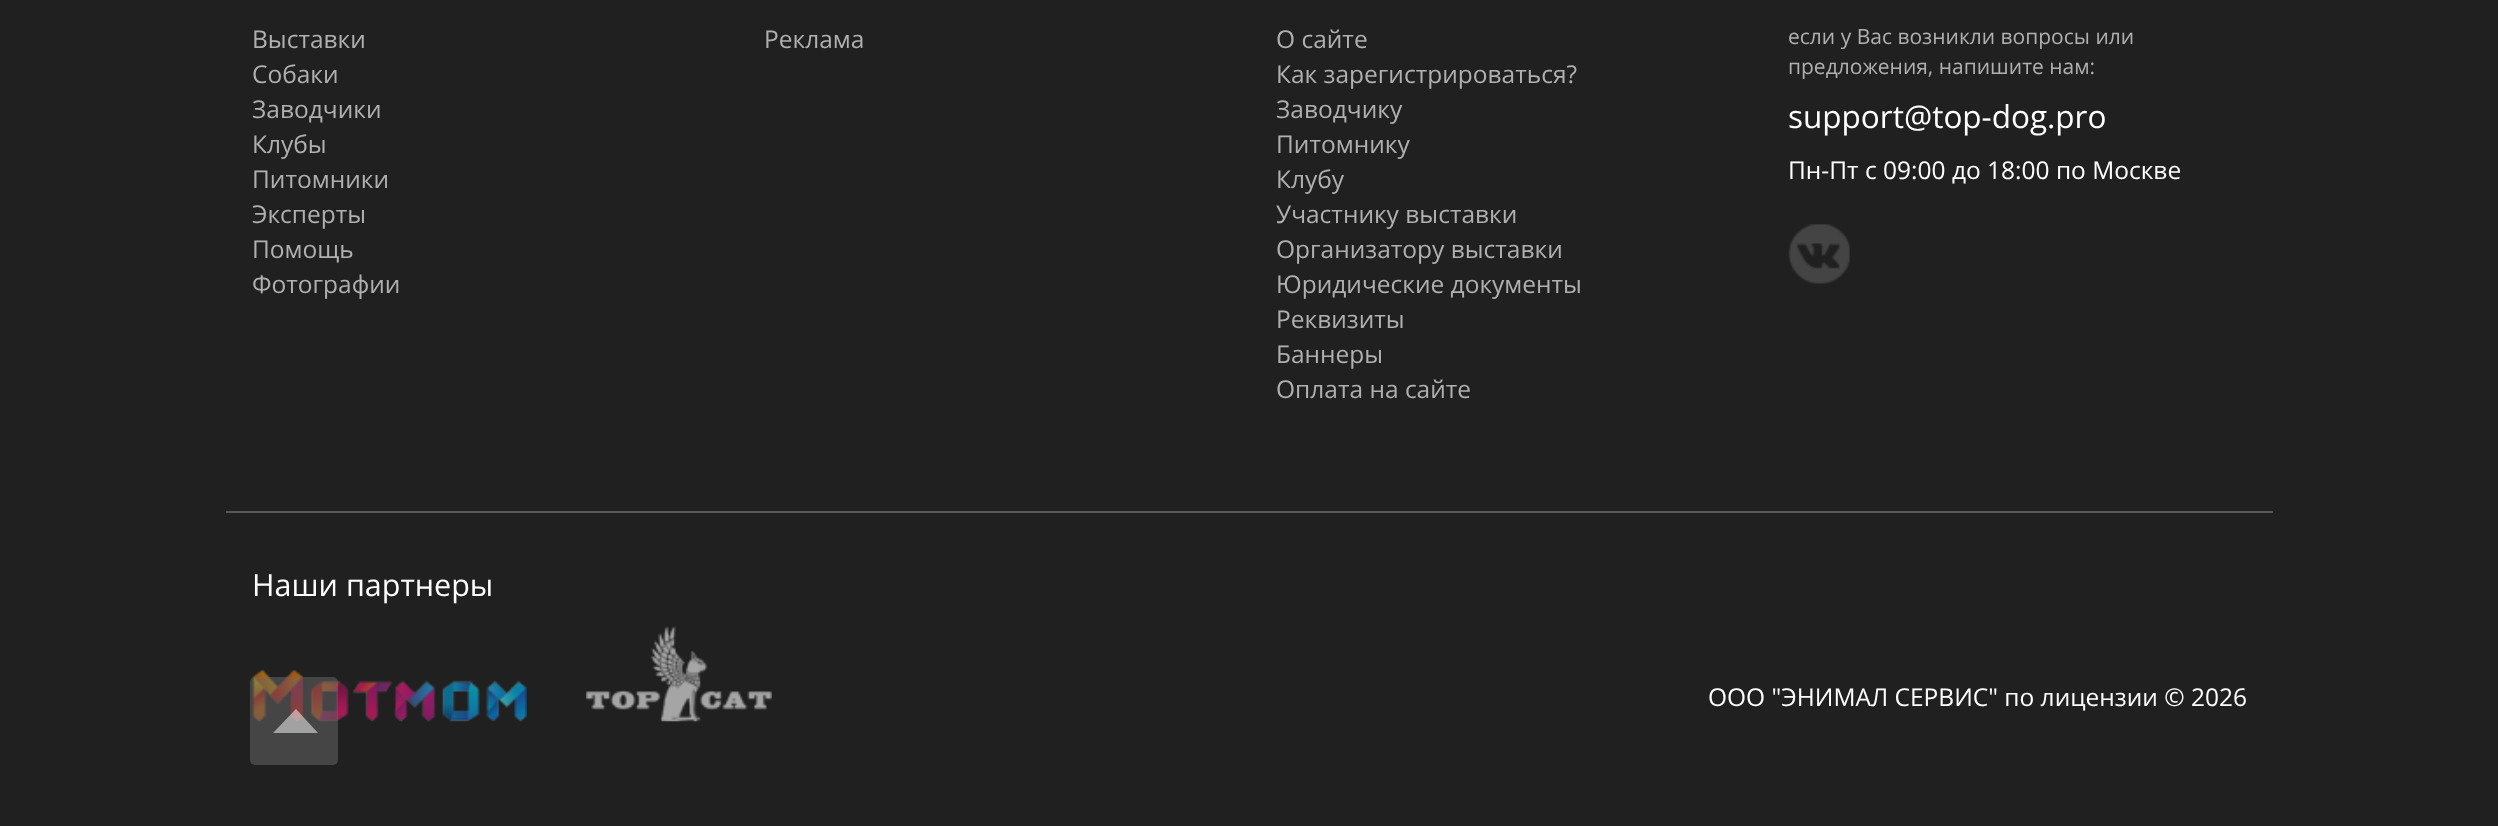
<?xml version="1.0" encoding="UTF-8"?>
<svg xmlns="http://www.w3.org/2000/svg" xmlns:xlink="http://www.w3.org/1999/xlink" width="2498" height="826">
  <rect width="100%" height="100%" fill="#202020" />
  <image x="1788" y="224" width="62" height="60" xlink:href="image1.png" />
  <rect x="226" y="511" width="2047" height="2" fill="#585858" />
  <image x="252" y="670" width="275" height="52" xlink:href="image2.png" />
  <image x="586" y="626" width="186" height="96" xlink:href="image3.png" />
  <rect x="250" y="677" width="88" height="88" rx="5" fill="#696969" fill-opacity="0.5" />
  <path d="M 318 733 h -45 l 23 -24 z" fill="#ffffff" fill-opacity="0.5" />
  <text x="252" y="48" style="font-family: Open Sans; font-size: 24.5px; fill: #b0b0b0">Выставки</text>
  <text x="252" y="83" style="font-family: Open Sans; font-size: 24.5px; fill: #b0b0b0">Собаки</text>
  <text x="252" y="118" style="font-family: Open Sans; font-size: 24.5px; fill: #b0b0b0">Заводчики</text>
  <text x="252" y="153" style="font-family: Open Sans; font-size: 24.5px; fill: #b0b0b0">Клубы</text>
  <text x="252" y="188" style="font-family: Open Sans; font-size: 24.5px; fill: #b0b0b0">Питомники</text>
  <text x="252" y="223" style="font-family: Open Sans; font-size: 24.5px; fill: #b0b0b0">Эксперты</text>
  <text x="252" y="258" style="font-family: Open Sans; font-size: 24.5px; fill: #b0b0b0">Помощь</text>
  <text x="252" y="293" style="font-family: Open Sans; font-size: 24.5px; fill: #b0b0b0">Фотографии</text>
  <text x="764" y="48" style="font-family: Open Sans; font-size: 24.5px; fill: #b0b0b0">Реклама</text>
  <text x="1276" y="48" style="font-family: Open Sans; font-size: 24.5px; fill: #b0b0b0">О сайте</text>
  <text x="1276" y="83" style="font-family: Open Sans; font-size: 24.5px; fill: #b0b0b0">Как зарегистрироваться?</text>
  <text x="1276" y="118" style="font-family: Open Sans; font-size: 24.5px; fill: #b0b0b0">Заводчику</text>
  <text x="1276" y="153" style="font-family: Open Sans; font-size: 24.5px; fill: #b0b0b0">Питомнику</text>
  <text x="1276" y="188" style="font-family: Open Sans; font-size: 24.5px; fill: #b0b0b0">Клубу</text>
  <text x="1276" y="223" style="font-family: Open Sans; font-size: 24.5px; fill: #b0b0b0">Участнику выставки</text>
  <text x="1276" y="258" style="font-family: Open Sans; font-size: 24.5px; fill: #b0b0b0">Организатору выставки</text>
  <text x="1276" y="293" style="font-family: Open Sans; font-size: 24.5px; fill: #b0b0b0">Юридические документы</text>
  <text x="1276" y="328" style="font-family: Open Sans; font-size: 24.5px; fill: #b0b0b0">Реквизиты</text>
  <text x="1276" y="363" style="font-family: Open Sans; font-size: 24.5px; fill: #b0b0b0">Баннеры</text>
  <text x="1276" y="398" style="font-family: Open Sans; font-size: 24.5px; fill: #b0b0b0">Оплата на сайте</text>
  <text x="1788" y="44" style="font-family: Open Sans; font-size: 21px; fill: #b0b0b0">eсли у Вас возникли вопросы или</text>
  <text x="1788" y="74" style="font-family: Open Sans; font-size: 21px; fill: #b0b0b0">предложения, напишите нам:</text>
  <text x="1788" y="128" style="font-family: Open Sans; font-size: 31.5px; fill: #ffffff">support@top-dog.pro</text>
  <text x="1788" y="179" style="font-family: Open Sans; font-size: 24.5px; fill: #ffffff">Пн-Пт с 09:00 до 18:00 по Москве</text>
  <text x="252" y="596" style="font-family: Open Sans; font-size: 30.5px; fill: #ffffff">Наши партнеры</text>
  <text x="1708" y="706" style="font-family: Open Sans; font-size: 24.5px; fill: #ffffff">ООО "ЭНИМАЛ СЕРВИС" по лицензии © 2026</text>
</svg>
